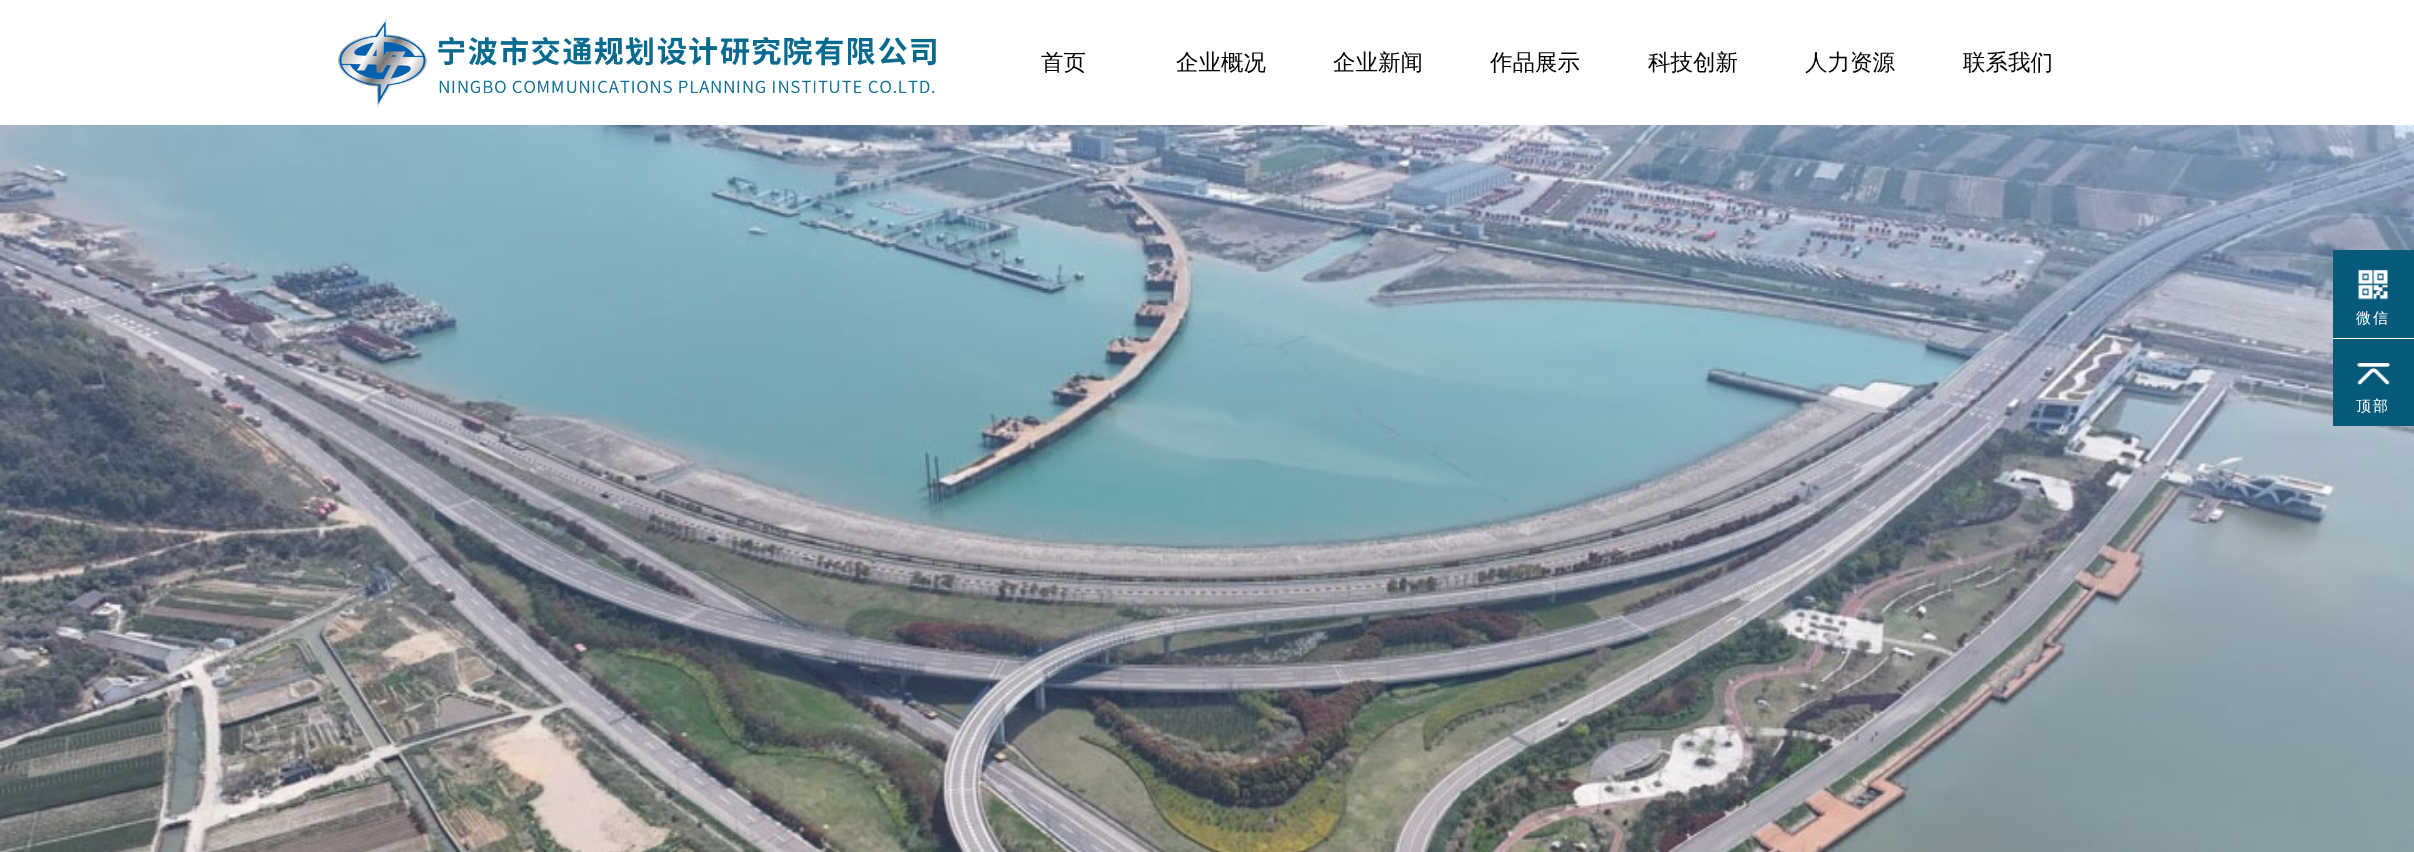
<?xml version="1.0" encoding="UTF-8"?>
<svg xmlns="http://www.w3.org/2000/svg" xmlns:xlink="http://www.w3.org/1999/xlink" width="2414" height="852">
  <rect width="100%" height="100%" fill="#ffffff" />
  <image x="338" y="17" width="598" height="91" xlink:href="image1.png" />
  <image x="0" y="125" width="2414" height="727" xlink:href="image2.png" />
  <rect x="2333" y="250" width="81" height="88" fill="#075a79" />
  <rect x="2333" y="338" width="81" height="1" fill="#ffffff" />
  <image x="2358" y="269" width="30" height="31" xlink:href="image3.png" />
  <rect x="2333" y="339" width="81" height="87" fill="#075a79" />
  <image x="2357" y="363" width="33" height="22" xlink:href="image4.png" />
  <text x="1041" y="70" style="font-family: WenQuanYi Zen Hei; font-size: 22.5px; font-weight: 500; fill: #000000">首页</text>
  <text x="1176" y="70" style="font-family: WenQuanYi Zen Hei; font-size: 22.5px; font-weight: 500; fill: #000000">企业概况</text>
  <text x="1333" y="70" style="font-family: WenQuanYi Zen Hei; font-size: 22.5px; font-weight: 500; fill: #000000">企业新闻</text>
  <text x="1490" y="70" style="font-family: WenQuanYi Zen Hei; font-size: 22.5px; font-weight: 500; fill: #000000">作品展示</text>
  <text x="1648" y="70" style="font-family: WenQuanYi Zen Hei; font-size: 22.5px; font-weight: 500; fill: #000000">科技创新</text>
  <text x="1805" y="70" style="font-family: WenQuanYi Zen Hei; font-size: 22.5px; font-weight: 500; fill: #000000">人力资源</text>
  <text x="1963" y="70" style="font-family: WenQuanYi Zen Hei; font-size: 22.5px; font-weight: 500; fill: #000000">联系我们</text>
  <text x="2356" y="323" style="font-family: WenQuanYi Zen Hei; font-size: 15px; font-weight: 500; letter-spacing: 2px; fill: #ffffff">微信</text>
  <text x="2356" y="411" style="font-family: WenQuanYi Zen Hei; font-size: 15px; font-weight: 500; letter-spacing: 2px; fill: #ffffff">顶部</text>
</svg>
